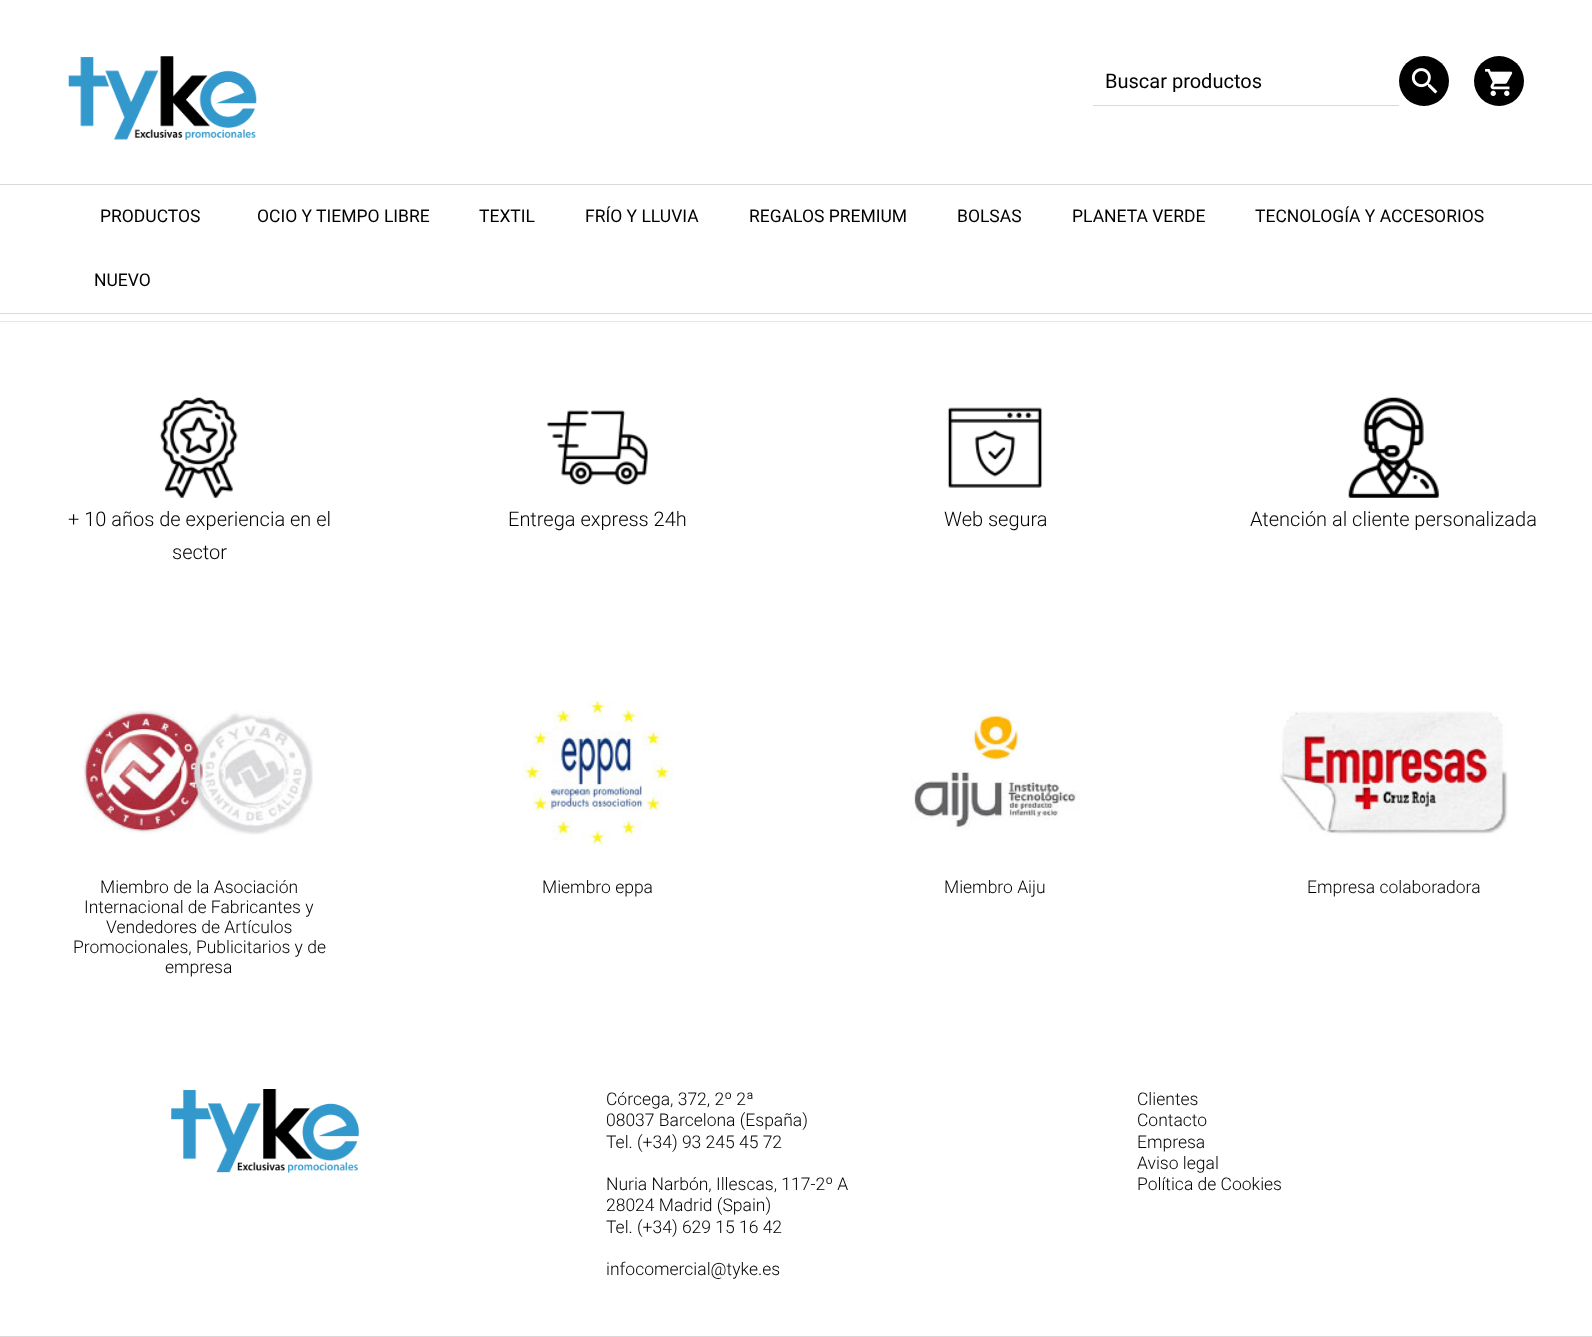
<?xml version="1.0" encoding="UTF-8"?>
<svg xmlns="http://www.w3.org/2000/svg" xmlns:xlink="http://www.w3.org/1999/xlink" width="1592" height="1337">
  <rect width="100%" height="100%" fill="#ffffff" />
  <rect y="184" width="1592" height="1" fill="#d9d9d9" />
  <image x="68" y="56" width="189" height="84" xlink:href="image1.png" />
  <rect x="1093" y="105" width="306" height="1" fill="#d9d9d9" />
  <circle cx="1424" cy="81" r="25" fill="#000000" />
  <image x="1411" y="68" width="27" height="26" xlink:href="image2.png" />
  <circle cx="1499" cy="81" r="25" fill="#000000" />
  <image x="1485" y="69" width="28" height="27" xlink:href="image3.png" />
  <rect y="313" width="1592" height="1" fill="#d9d9d9" />
  <rect y="321" width="1592" height="1" fill="#e7e7e7" />
  <image x="159" y="397" width="79" height="101" xlink:href="image4.png" />
  <image x="547" y="410" width="101" height="76" xlink:href="image5.png" />
  <image x="947" y="407" width="96" height="81" xlink:href="image6.png" />
  <image x="1348" y="397" width="91" height="101" xlink:href="image7.png" />
  <image x="83" y="710" width="230" height="125" xlink:href="image8.png" />
  <image x="522" y="700" width="151" height="146" xlink:href="image9.png" />
  <image x="911" y="710" width="169" height="120" xlink:href="image10.png" />
  <image x="1279" y="711" width="229" height="125" xlink:href="image11.png" />
  <rect y="1336" width="1592" height="1" fill="#d9d9d9" />
  <image x="171" y="1089" width="188" height="84" xlink:href="image12.png" />
  <text x="1105" y="88" style="font-family: Roboto; font-size: 20px; fill: #000000">Buscar productos</text>
  <text x="100" y="222" style="font-family: Roboto; font-size: 17.5px; fill: #000000">PRODUCTOS</text>
  <text x="257" y="222" style="font-family: Roboto; font-size: 17.5px; fill: #000000">OCIO Y TIEMPO LIBRE</text>
  <text x="479" y="222" style="font-family: Roboto; font-size: 17.5px; fill: #000000">TEXTIL</text>
  <text x="585" y="222" style="font-family: Roboto; font-size: 17.5px; fill: #000000">FRÍO Y LLUVIA</text>
  <text x="749" y="222" style="font-family: Roboto; font-size: 17.5px; fill: #000000">REGALOS PREMIUM</text>
  <text x="957" y="222" style="font-family: Roboto; font-size: 17.5px; fill: #000000">BOLSAS</text>
  <text x="1072" y="222" style="font-family: Roboto; font-size: 17.5px; fill: #000000">PLANETA VERDE</text>
  <text x="1255" y="222" style="font-family: Roboto; font-size: 17.5px; fill: #000000">TECNOLOGÍA Y ACCESORIOS</text>
  <text x="94" y="286" style="font-family: Roboto; font-size: 17.5px; fill: #000000">NUEVO</text>
  <text x="68" y="526" style="font-family: Roboto; font-size: 20px; font-weight: 300; fill: #000000">+ 10 años de experiencia en el</text>
  <text x="172" y="559" style="font-family: Roboto; font-size: 20px; font-weight: 300; fill: #000000">sector</text>
  <text x="508" y="526" style="font-family: Roboto; font-size: 20px; font-weight: 300; fill: #000000">Entrega express 24h</text>
  <text x="944" y="526" style="font-family: Roboto; font-size: 20px; font-weight: 300; fill: #000000">Web segura</text>
  <text x="1250" y="526" style="font-family: Roboto; font-size: 20px; font-weight: 300; fill: #000000">Atención al cliente personalizada</text>
  <text x="100" y="893" style="font-family: Roboto; font-size: 17.5px; font-weight: 300; fill: #000000">Miembro de la Asociación</text>
  <text x="84" y="913" style="font-family: Roboto; font-size: 17.5px; font-weight: 300; fill: #000000">Internacional de Fabricantes y</text>
  <text x="106" y="933" style="font-family: Roboto; font-size: 17.5px; font-weight: 300; fill: #000000">Vendedores de Artículos</text>
  <text x="73" y="953" style="font-family: Roboto; font-size: 17.5px; font-weight: 300; fill: #000000">Promocionales, Publicitarios y de</text>
  <text x="165" y="973" style="font-family: Roboto; font-size: 17.5px; font-weight: 300; fill: #000000">empresa</text>
  <text x="542" y="893" style="font-family: Roboto; font-size: 17.5px; font-weight: 300; fill: #000000">Miembro eppa</text>
  <text x="944" y="893" style="font-family: Roboto; font-size: 17.5px; font-weight: 300; fill: #000000">Miembro Aiju</text>
  <text x="1307" y="893" style="font-family: Roboto; font-size: 17.5px; font-weight: 300; fill: #000000">Empresa colaboradora</text>
  <text x="606" y="1105" style="font-family: Roboto; font-size: 17.5px; font-weight: 300; fill: #000000">Córcega, 372, 2º 2ª</text>
  <text x="606" y="1126" style="font-family: Roboto; font-size: 17.5px; font-weight: 300; fill: #000000">08037 Barcelona (España)</text>
  <text x="606" y="1148" style="font-family: Roboto; font-size: 17.5px; font-weight: 300; fill: #000000">Tel. (+34) 93 245 45 72</text>
  <text x="606" y="1190" style="font-family: Roboto; font-size: 17.5px; font-weight: 300; fill: #000000">Nuria Narbón, Illescas, 117-2º A</text>
  <text x="606" y="1211" style="font-family: Roboto; font-size: 17.5px; font-weight: 300; fill: #000000">28024 Madrid (Spain)</text>
  <text x="606" y="1233" style="font-family: Roboto; font-size: 17.5px; font-weight: 300; fill: #000000">Tel. (+34) 629 15 16 42</text>
  <text x="606" y="1275" style="font-family: Roboto; font-size: 17.5px; font-weight: 300; fill: #000000">infocomercial@tyke.es</text>
  <text x="1137" y="1105" style="font-family: Roboto; font-size: 17.5px; font-weight: 300; fill: #000000">Clientes</text>
  <text x="1137" y="1126" style="font-family: Roboto; font-size: 17.5px; font-weight: 300; fill: #000000">Contacto</text>
  <text x="1137" y="1148" style="font-family: Roboto; font-size: 17.5px; font-weight: 300; fill: #000000">Empresa</text>
  <text x="1137" y="1169" style="font-family: Roboto; font-size: 17.5px; font-weight: 300; fill: #000000">Aviso legal</text>
  <text x="1137" y="1190" style="font-family: Roboto; font-size: 17.5px; font-weight: 300; fill: #000000">Política de Cookies</text>
</svg>
